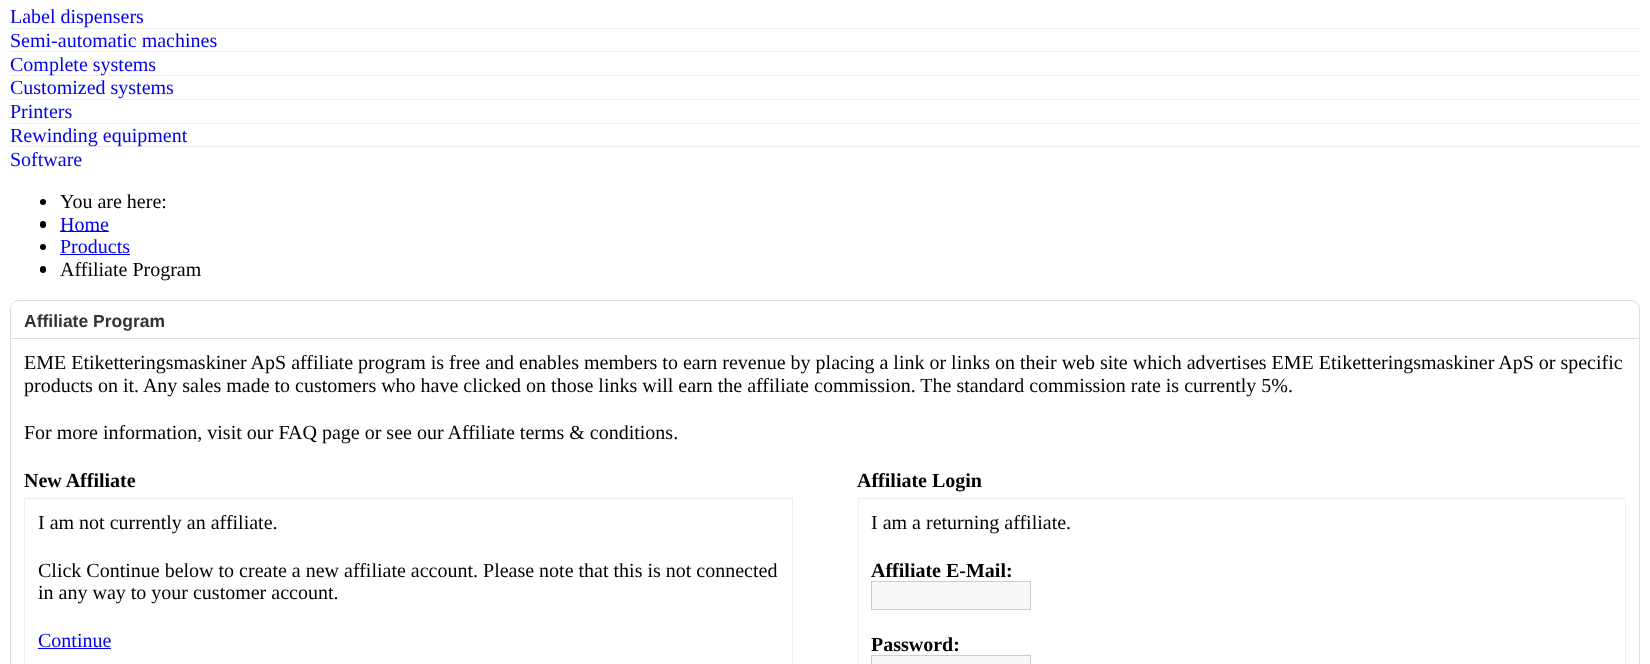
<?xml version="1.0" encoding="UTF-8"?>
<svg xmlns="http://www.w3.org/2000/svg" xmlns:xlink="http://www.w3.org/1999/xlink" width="1650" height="664">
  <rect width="100%" height="100%" fill="#ffffff" />
  <rect x="10" y="28" width="1630" height="1" fill="#eeeeee" />
  <rect x="10" y="51" width="1630" height="1" fill="#eeeeee" />
  <rect x="10" y="75" width="1630" height="1" fill="#eeeeee" />
  <rect x="10" y="99" width="1630" height="1" fill="#eeeeee" />
  <rect x="10" y="123" width="1630" height="1" fill="#eeeeee" />
  <rect x="10" y="146" width="1630" height="1" fill="#eeeeee" />
  <circle cx="43" cy="202" r="3" fill="#000000" />
  <rect x="40" y="221" width="6" height="7" rx="3" fill="#000000" />
  <rect x="60" y="231" width="49" height="1" fill="#0000ee" />
  <circle cx="43" cy="247" r="3" fill="#000000" />
  <rect x="60" y="254" width="70" height="1" fill="#0000ee" />
  <rect x="40" y="266" width="6" height="7" rx="3" fill="#000000" />
  <path d="M 19 300.5 h 1612 c 4.5 0 8.5 4 8.5 8.5 v 29.5 h -1629 v -29.5 c 0 -4.5 4 -8.5 8.5 -8.5 z" fill="none" stroke="#dbdee1" />
  <path d="M 10 339 h 1630 v 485 c 0 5 -4 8 -9 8 h -1612 c -5 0 -9 -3 -9 -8 z m 1 0 h 1628 v 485 c 0 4 -4 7 -8 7 h -1612 c -4 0 -8 -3 -8 -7 z" fill="#dbdee1" fill-rule="evenodd" />
  <rect x="24.5" y="498.5" width="768" height="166" fill="none" stroke="#eeeeee" />
  <rect x="38" y="648" width="73" height="1" fill="#0000ee" />
  <rect x="858.5" y="498.5" width="767" height="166" fill="none" stroke="#eeeeee" />
  <rect x="871.5" y="581.5" width="159" height="28" fill="#f8f8f8" stroke="#cccccc" />
  <rect x="871.5" y="655.5" width="159" height="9" fill="#f8f8f8" stroke="#cccccc" />
  <text x="10" y="23" style="font-family: Liberation Serif; font-size: 20px; fill: #0000ee">Label dispensers</text>
  <text x="10" y="47" style="font-family: Liberation Serif; font-size: 20px; fill: #0000ee">Semi-automatic machines</text>
  <text x="10" y="71" style="font-family: Liberation Serif; font-size: 20px; fill: #0000ee">Complete systems</text>
  <text x="10" y="94" style="font-family: Liberation Serif; font-size: 20px; fill: #0000ee">Customized systems</text>
  <text x="10" y="118" style="font-family: Liberation Serif; font-size: 20px; fill: #0000ee">Printers</text>
  <text x="10" y="142" style="font-family: Liberation Serif; font-size: 20px; fill: #0000ee">Rewinding equipment</text>
  <text x="10" y="166" style="font-family: Liberation Serif; font-size: 20px; fill: #0000ee">Software</text>
  <text x="60" y="208" style="font-family: Liberation Serif; font-size: 20px; fill: #000000">You are here:</text>
  <text x="60" y="231" style="font-family: Liberation Serif; font-size: 20px; fill: #0000ee">Home</text>
  <text x="60" y="253" style="font-family: Liberation Serif; font-size: 20px; fill: #0000ee">Products</text>
  <text x="60" y="276" style="font-family: Liberation Serif; font-size: 20px; fill: #000000">Affiliate Program</text>
  <text x="24" y="327" style="font-family: Liberation Sans; font-size: 17.5px; font-weight: bold; fill: #333333">Affiliate Program</text>
  <text x="24" y="369" style="font-family: Liberation Serif; font-size: 20px; fill: #000000">EME Etiketteringsmaskiner ApS affiliate program is free and enables members to earn revenue by placing a link or links on their web site which advertises EME Etiketteringsmaskiner ApS or specific</text>
  <text x="24" y="392" style="font-family: Liberation Serif; font-size: 20px; fill: #000000">products on it. Any sales made to customers who have clicked on those links will earn the affiliate commission. The standard commission rate is currently 5%.</text>
  <text x="24" y="439" style="font-family: Liberation Serif; font-size: 20px; fill: #000000">For more information, visit our FAQ page or see our Affiliate terms &amp; conditions.</text>
  <text x="24" y="487" style="font-family: Liberation Serif; font-size: 20px; font-weight: bold; fill: #000000">New Affiliate</text>
  <text x="38" y="529" style="font-family: Liberation Serif; font-size: 20px; fill: #000000">I am not currently an affiliate.</text>
  <text x="38" y="577" style="font-family: Liberation Serif; font-size: 20px; fill: #000000">Click Continue below to create a new affiliate account. Please note that this is not connected</text>
  <text x="38" y="599" style="font-family: Liberation Serif; font-size: 20px; fill: #000000">in any way to your customer account.</text>
  <text x="38" y="647" style="font-family: Liberation Serif; font-size: 20px; fill: #0000ee">Continue</text>
  <text x="857" y="487" style="font-family: Liberation Serif; font-size: 20px; font-weight: bold; fill: #000000">Affiliate Login</text>
  <text x="871" y="529" style="font-family: Liberation Serif; font-size: 20px; fill: #000000">I am a returning affiliate.</text>
  <text x="871" y="577" style="font-family: Liberation Serif; font-size: 20px; font-weight: bold; fill: #000000">Affiliate E-Mail:</text>
  <text x="871" y="651" style="font-family: Liberation Serif; font-size: 20px; font-weight: bold; fill: #000000">Password:</text>
</svg>
